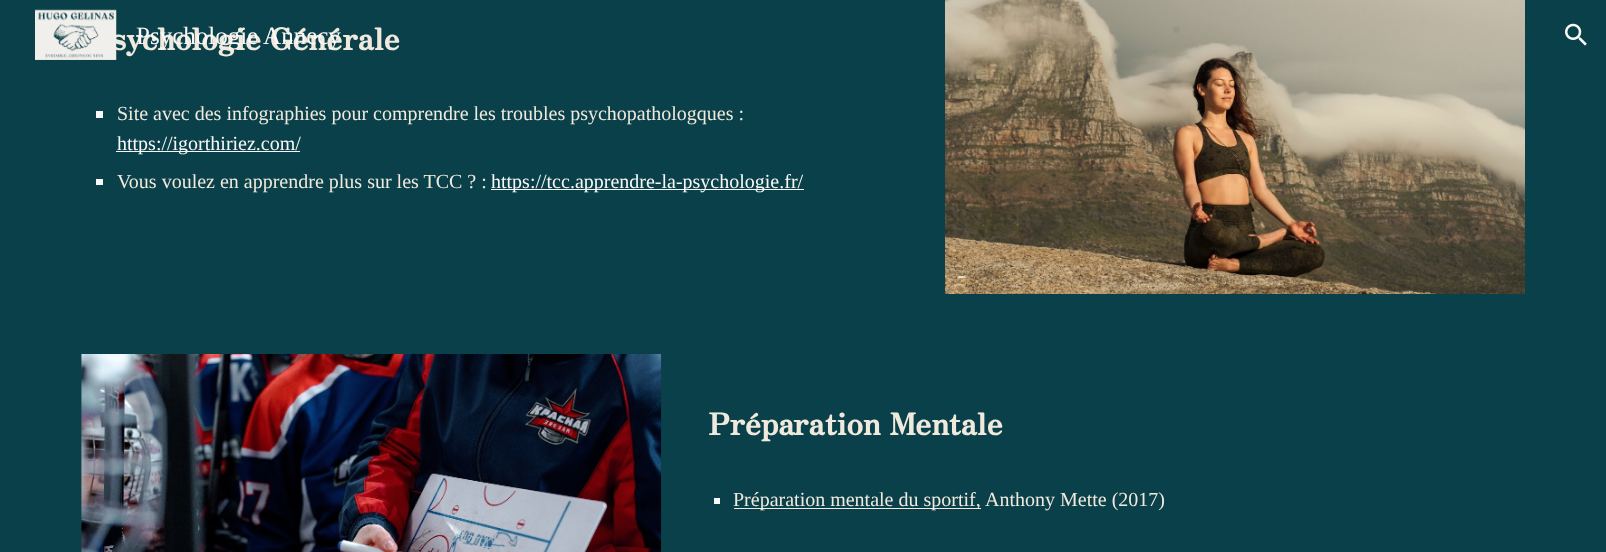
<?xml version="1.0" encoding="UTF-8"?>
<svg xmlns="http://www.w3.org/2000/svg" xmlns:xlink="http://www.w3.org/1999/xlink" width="1606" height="552">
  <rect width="100%" height="100%" fill="#0a4049" />
  <image x="1565" y="23" width="22" height="23" xlink:href="image2.png" />
  <rect x="96" y="111" width="7" height="7" fill="#f9f9f9" />
  <rect x="116" y="151" width="184" height="1" fill="#f9f9f9" />
  <rect x="96" y="179" width="7" height="6" fill="#f9f9f9" />
  <rect x="491" y="189" width="313" height="1" fill="#f9f9f9" />
  <image x="945" y="0" width="580" height="294" xlink:href="image3.png" />
  <image x="81" y="354" width="581" height="198" xlink:href="image4.png" />
  <rect x="714" y="498" width="6" height="6" fill="#f9f9f9" />
  <rect x="734" y="508" width="247" height="1" fill="#f0e9dd" />
  <text x="111" y="50" style="font-family: Zen Antique Soft; font-size: 30px; font-weight: bold; fill: #f0e9dd">sychologie Générale</text>
  <text x="136" y="44" style="font-family: Liberation Serif; font-size: 25px; fill: #f9f9f9">Psychologie Annecy</text>
  <image x="35" y="9" width="82" height="51" xlink:href="image1.png" />
  <text x="117" y="120" style="font-family: Liberation Serif; font-size: 20px; fill: #f0e9dd">Site avec des infographies pour comprendre les troubles psychopathologques :</text>
  <text x="117" y="150" style="font-family: Liberation Serif; font-size: 20px; fill: #f9f9f9">https://igorthiriez.com/</text>
  <text x="117" y="188" style="font-family: Liberation Serif; font-size: 20px; fill: #f0e9dd">Vous voulez en apprendre plus sur les TCC ? :</text>
  <text x="491" y="188" style="font-family: Liberation Serif; font-size: 20px; fill: #f9f9f9">https://tcc.apprendre-la-psychologie.fr/</text>
  <text x="708" y="435" style="font-family: Zen Antique Soft; font-size: 30px; font-weight: bold; fill: #f0e9dd">Préparation Mentale</text>
  <text x="733" y="506" style="font-family: Liberation Serif; font-size: 20px; fill: #f0e9dd">Préparation mentale du sportif,</text>
  <text x="985" y="506" style="font-family: Liberation Serif; font-size: 20px; fill: #f0e9dd">Anthony Mette (2017)</text>
</svg>
